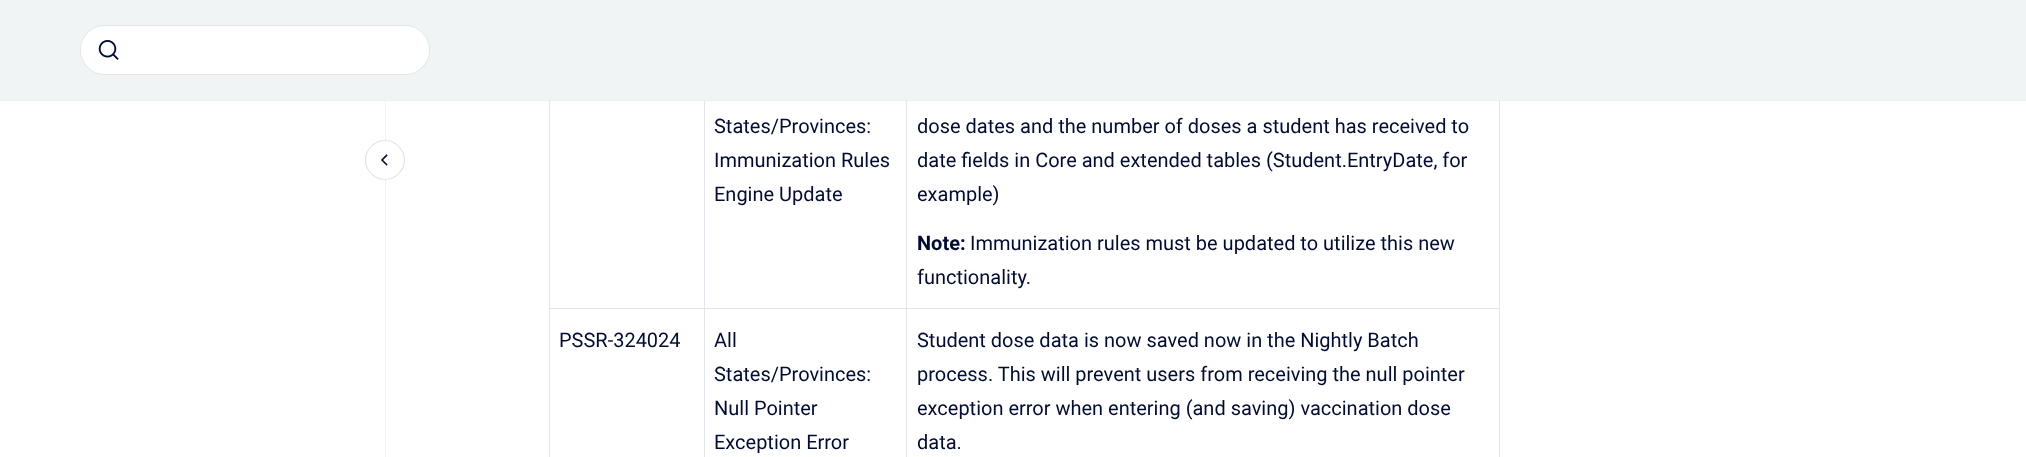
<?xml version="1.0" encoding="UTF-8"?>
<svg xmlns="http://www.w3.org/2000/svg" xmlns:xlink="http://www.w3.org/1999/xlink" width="2026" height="457">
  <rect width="100%" height="100%" fill="#ffffff" />
  <rect width="2026" height="100" fill="#f1f4f4" />
  <rect y="100" width="2026" height="1" fill="#eff0f4" />
  <rect x="80.5" y="25.5" width="349" height="49" rx="24.5" fill="none" stroke="#e2e5eb" />
  <rect x="81" y="26" width="348" height="48" rx="24" fill="#ffffff" />
  <image x="98" y="40" width="21" height="20" xlink:href="image1.png" />
  <rect x="385" y="101" width="1" height="356" fill="#eff0f4" />
  <path d="M 385 180 c -26 0 -26 -40 0 -40 c 26 0 26 40 0 40 z" fill="#ffffff" />
  <path d="M 385 179.5 c -10.5 0 -19.5 -9 -19.5 -19.5 c 0 -10.5 9 -19.5 19.5 -19.5 c 10.5 0 19.5 9 19.5 19.5 c 0 10.5 -9 19.5 -19.5 19.5 z" fill="none" stroke="#e2e5eb" stroke-width="1.2" />
  <path d="M 386.5 164.5 l -4.5 -4.5 l 4.5 -4.5" fill="none" stroke="#000c34" stroke-width="1.6" stroke-linecap="square" />
  <rect x="1499" y="101" width="1" height="356" fill="#e2e5eb" />
  <rect x="549" y="101" width="1" height="356" fill="#e2e5eb" />
  <rect x="906" y="308" width="594" height="1" fill="#e2e5eb" />
  <rect x="906" y="308" width="1" height="149" fill="#e2e5eb" />
  <rect x="704" y="308" width="204" height="1" fill="#e2e5eb" />
  <rect x="704" y="308" width="1" height="149" fill="#e2e5eb" />
  <rect x="549" y="308" width="156" height="1" fill="#e2e5eb" />
  <rect x="704" y="101" width="1" height="208" fill="#e2e5eb" />
  <rect x="906" y="101" width="1" height="208" fill="#e2e5eb" />
  <text x="714" y="133" style="font-family: Roboto; font-size: 20px; fill: #000c34">States/Provinces:</text>
  <text x="714" y="167" style="font-family: Roboto; font-size: 20px; fill: #000c34">Immunization Rules</text>
  <text x="714" y="201" style="font-family: Roboto; font-size: 20px; fill: #000c34">Engine Update</text>
  <text x="917" y="133" style="font-family: Roboto; font-size: 20px; fill: #000c34">dose dates and the number of doses a student has received to</text>
  <text x="917" y="167" style="font-family: Roboto; font-size: 20px; fill: #000c34">date fields in Core and extended tables (Student.EntryDate, for</text>
  <text x="917" y="201" style="font-family: Roboto; font-size: 20px; fill: #000c34">example)</text>
  <text x="917" y="250" style="font-family: Roboto; font-size: 20px; font-weight: bold; fill: #000c34">Note:</text>
  <text x="970" y="250" style="font-family: Roboto; font-size: 20px; fill: #000c34">Immunization rules must be updated to utilize this new</text>
  <text x="917" y="284" style="font-family: Roboto; font-size: 20px; fill: #000c34">functionality.</text>
  <text x="559" y="347" style="font-family: Roboto; font-size: 20px; fill: #000c34">PSSR-324024</text>
  <text x="714" y="347" style="font-family: Roboto; font-size: 20px; fill: #000c34">All</text>
  <text x="714" y="381" style="font-family: Roboto; font-size: 20px; fill: #000c34">States/Provinces:</text>
  <text x="714" y="415" style="font-family: Roboto; font-size: 20px; fill: #000c34">Null Pointer</text>
  <text x="714" y="449" style="font-family: Roboto; font-size: 20px; fill: #000c34">Exception Error</text>
  <text x="917" y="347" style="font-family: Roboto; font-size: 20px; fill: #000c34">Student dose data is now saved now in the Nightly Batch</text>
  <text x="917" y="381" style="font-family: Roboto; font-size: 20px; fill: #000c34">process. This will prevent users from receiving the null pointer</text>
  <text x="917" y="415" style="font-family: Roboto; font-size: 20px; fill: #000c34">exception error when entering (and saving) vaccination dose</text>
  <text x="917" y="449" style="font-family: Roboto; font-size: 20px; fill: #000c34">data.</text>
</svg>
